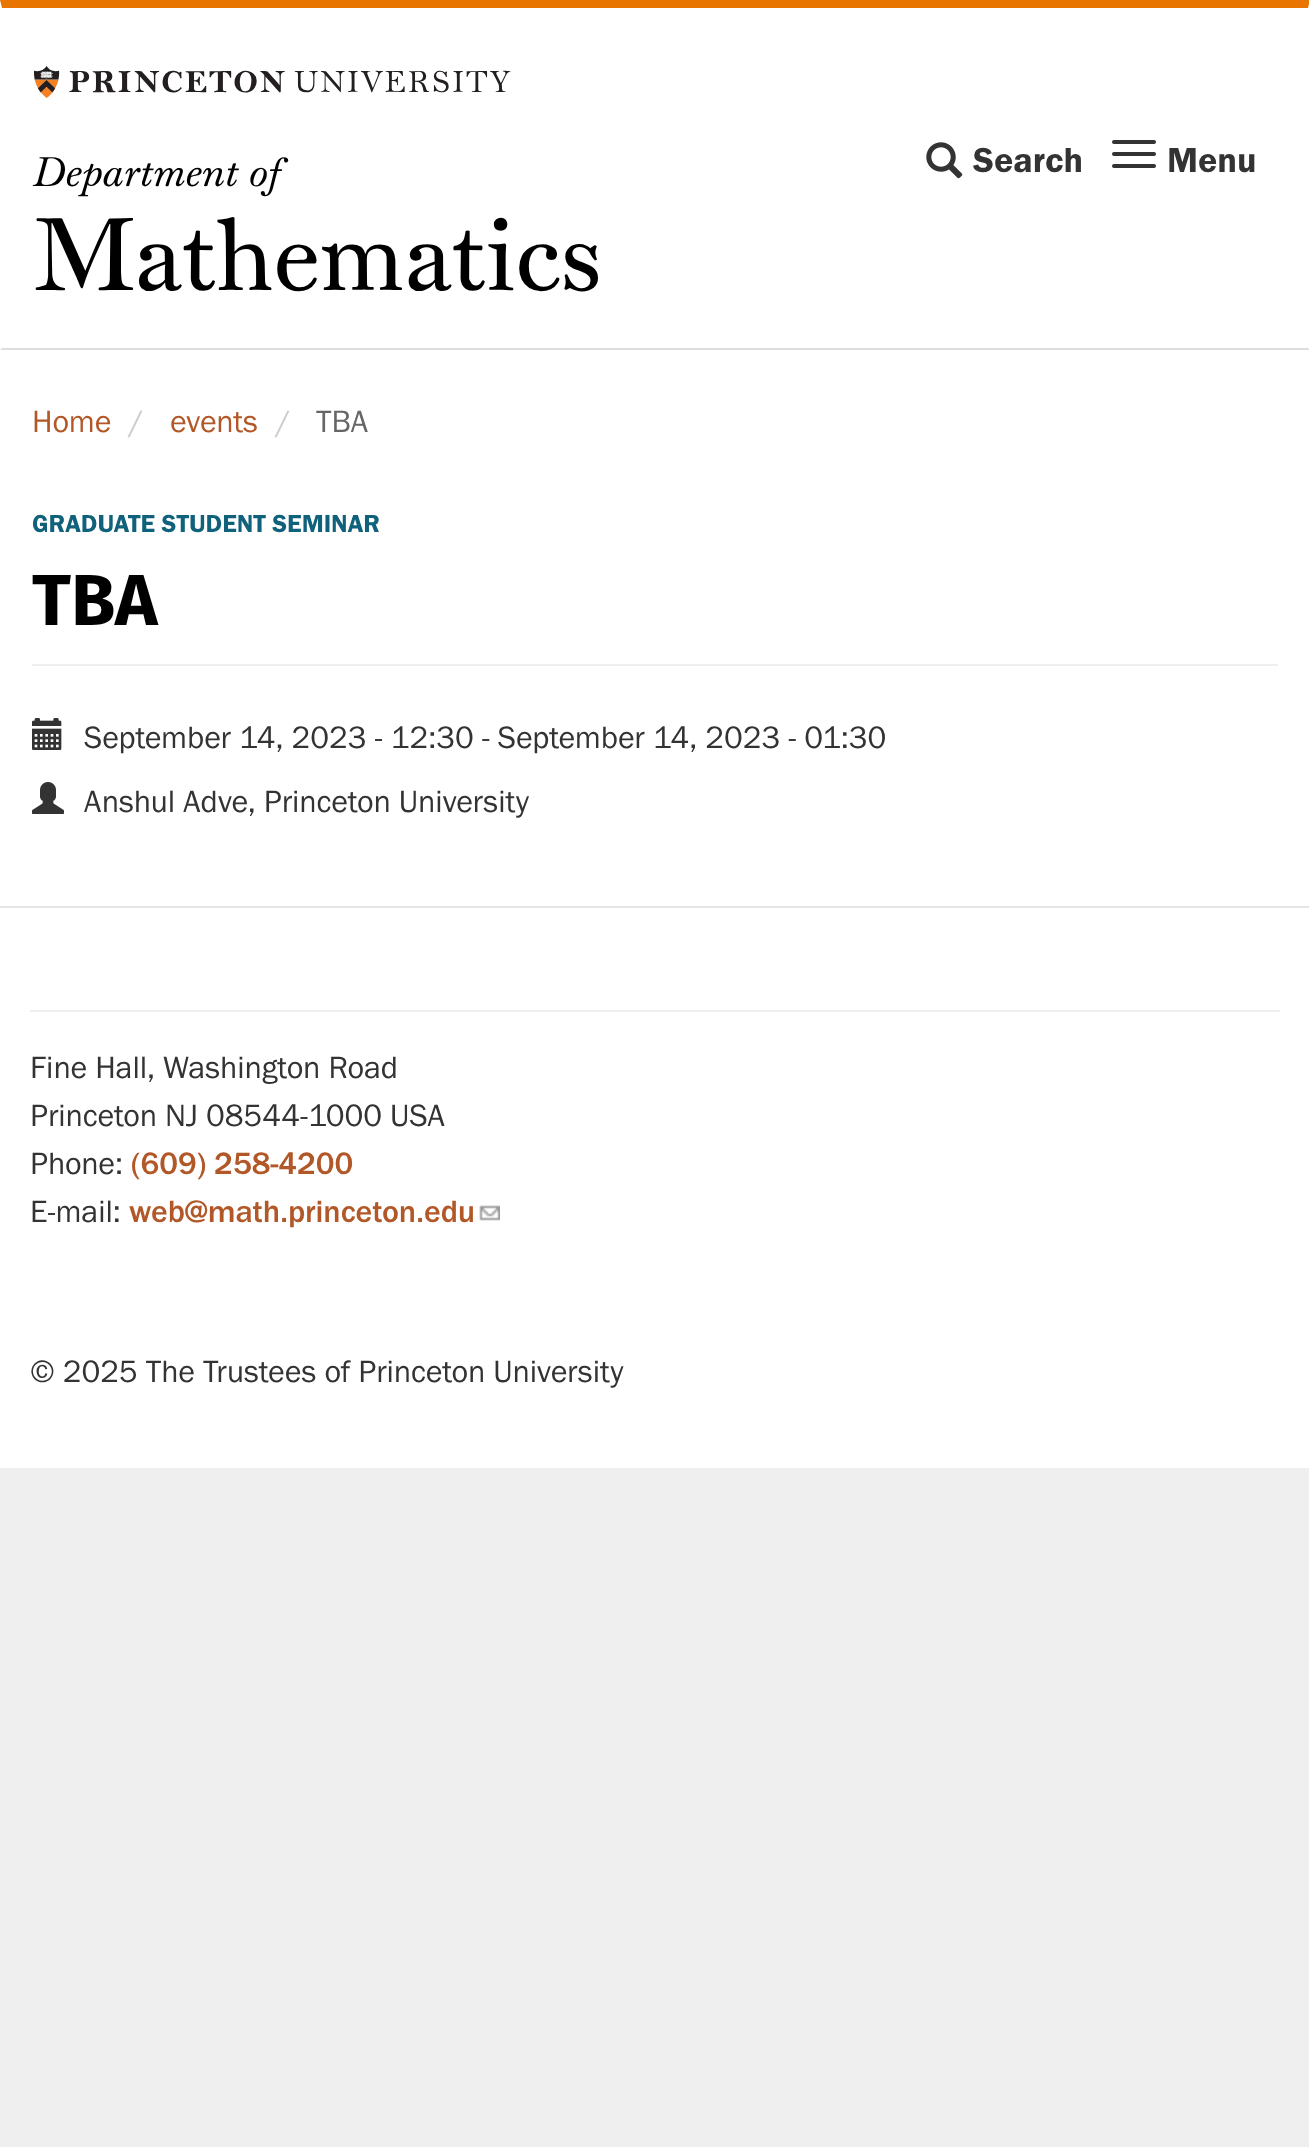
<?xml version="1.0" encoding="UTF-8"?>
<svg xmlns="http://www.w3.org/2000/svg" xmlns:xlink="http://www.w3.org/1999/xlink" width="1309" height="2147">
  <rect width="100%" height="100%" fill="#efefef" />
  <rect width="1309" height="906" fill="#ffffff" />
  <path d="M 0 0 h 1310 l -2 8 h -1306 z" fill="#e77500" />
  <path d="M 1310 350 h -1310 l 2 -2 h 1306 z" fill="#dddddd" />
  <image x="34" y="66" width="477" height="32" xlink:href="image1.png" />
  <image x="926" y="142" width="37" height="37" xlink:href="image2.png" />
  <rect x="1112" y="140" width="44" height="4" rx="2" fill="#333333" />
  <rect x="1112" y="152" width="44" height="4" rx="2" fill="#333333" />
  <rect x="1112" y="164" width="44" height="4" rx="2" fill="#333333" />
  <rect x="32" y="664" width="1246" height="2" fill="#eeeeee" />
  <image x="32" y="718" width="30" height="32" xlink:href="image3.png" />
  <image x="32" y="782" width="32" height="32" xlink:href="image4.png" />
  <rect y="908" width="1309" height="560" fill="#ffffff" />
  <rect y="906" width="1309" height="2" fill="#e5e5e5" />
  <rect x="30" y="1010" width="1250" height="2" fill="#eeeeee" />
  <image x="479" y="1205" width="21" height="16" xlink:href="image5.png" />
  <text x="34" y="186" style="font-family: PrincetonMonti; font-size: 40px; font-weight: 500; font-style: italic; fill: #000000">Department of</text>
  <text x="34" y="290" style="font-family: PrincetonMonti; font-size: 100px; fill: #000000">Mathematics</text>
  <text x="973" y="172" style="font-family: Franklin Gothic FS; font-size: 36px; font-weight: 600; fill: #333333">Search</text>
  <text x="1167" y="172" style="font-family: Franklin Gothic FS; font-size: 36px; font-weight: 600; fill: #333333">Menu</text>
  <text x="32" y="432" style="font-family: Franklin Gothic FS; font-size: 32px; fill: #b25828">Home</text>
  <text x="129" y="432" style="font-family: Franklin Gothic FS; font-size: 32px; fill: #cccccc">/</text>
  <text x="170" y="432" style="font-family: Franklin Gothic FS; font-size: 32px; fill: #b25828">events</text>
  <text x="276" y="432" style="font-family: Franklin Gothic FS; font-size: 32px; fill: #cccccc">/</text>
  <text x="316" y="432" style="font-family: Franklin Gothic FS; font-size: 32px; fill: #666666">TBA</text>
  <text x="32" y="532" style="font-family: Franklin Gothic FS; font-size: 25.6px; font-weight: 600; fill: #10617b">GRADUATE STUDENT SEMINAR</text>
  <text x="32" y="625" style="font-family: Fira Sans; font-size: 72px; font-weight: bold; fill: #000000">TBA</text>
  <text x="84" y="748" style="font-family: Franklin Gothic FS; font-size: 32px; fill: #333333">September 14, 2023 - 12:30 - September 14, 2023 - 01:30</text>
  <text x="84" y="812" style="font-family: Franklin Gothic FS; font-size: 32px; fill: #333333">Anshul Adve, Princeton University</text>
  <text x="30" y="1078" style="font-family: Franklin Gothic FS; font-size: 32px; fill: #333333">Fine Hall, Washington Road</text>
  <text x="30" y="1126" style="font-family: Franklin Gothic FS; font-size: 32px; fill: #333333">Princeton NJ 08544-1000 USA</text>
  <text x="30" y="1174" style="font-family: Franklin Gothic FS; font-size: 32px; fill: #333333">Phone:</text>
  <text x="131" y="1174" style="font-family: Franklin Gothic FS; font-size: 32px; font-weight: 500; fill: #b25828">(609) 258-4200</text>
  <text x="30" y="1222" style="font-family: Franklin Gothic FS; font-size: 32px; fill: #333333">E-mail:</text>
  <text x="129" y="1222" style="font-family: Franklin Gothic FS; font-size: 32px; font-weight: 500; fill: #b25828">web@math.princeton.edu</text>
  <text x="30" y="1382" style="font-family: Franklin Gothic FS; font-size: 32px; fill: #333333">© 2025 The Trustees of Princeton University</text>
</svg>
